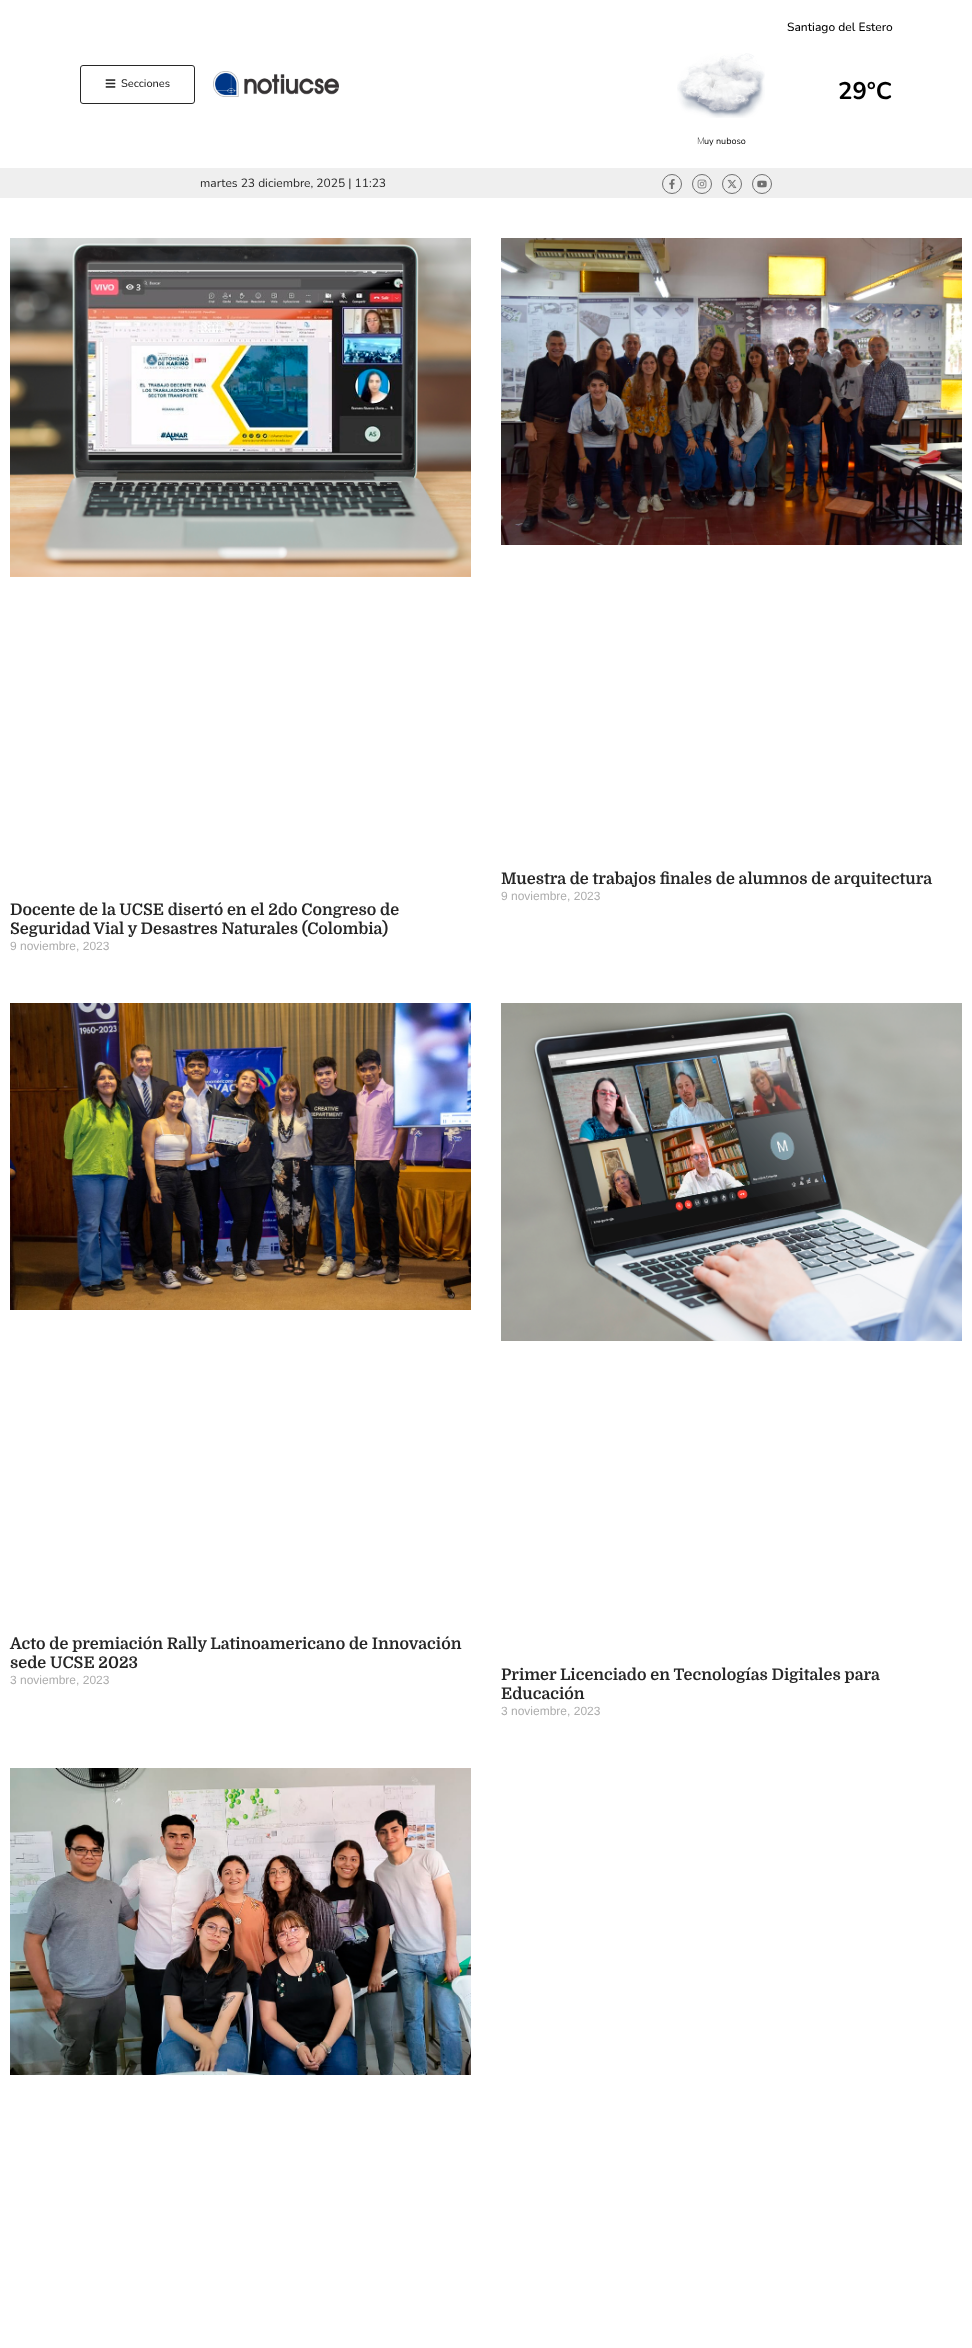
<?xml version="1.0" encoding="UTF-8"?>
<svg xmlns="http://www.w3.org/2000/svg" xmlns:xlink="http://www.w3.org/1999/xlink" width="972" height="2348">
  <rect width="100%" height="100%" fill="#ffffff" />
  <rect x="80.5" y="65.5" width="114" height="38" rx="2.5" fill="none" stroke="#272727" />
  <image x="105" y="79" width="11" height="9" xlink:href="image1.png" />
  <image x="213" y="71" width="126" height="26" xlink:href="image2.png" />
  <image x="677" y="53" width="88" height="65" xlink:href="image3.png" />
  <rect y="168" width="972" height="30" fill="#efefef" />
  <circle cx="672" cy="184" r="9.5" fill="none" stroke="#707070" />
  <image x="669" y="179" width="6" height="10" xlink:href="image4.png" />
  <circle cx="702" cy="184" r="9.5" fill="none" stroke="#707070" />
  <image x="697" y="179" width="10" height="10" xlink:href="image5.png" />
  <circle cx="732" cy="184" r="9.5" fill="none" stroke="#707070" />
  <image x="727" y="179" width="10" height="10" xlink:href="image6.png" />
  <circle cx="762" cy="184" r="9.5" fill="none" stroke="#707070" />
  <image x="757" y="180" width="10" height="8" xlink:href="image7.png" />
  <image x="501" y="238" width="461" height="307" xlink:href="image8.png" />
  <image x="10" y="238" width="461" height="339" xlink:href="image9.png" />
  <image x="10" y="1003" width="461" height="307" xlink:href="image10.png" />
  <image x="501" y="1003" width="461" height="338" xlink:href="image11.png" />
  <image x="10" y="1768" width="461" height="307" xlink:href="image12.png" />
  <text x="121" y="87" style="font-family: Nunito; font-size: 11px; font-weight: 500; fill: #272727">Secciones</text>
  <text x="787" y="31" style="font-family: Nunito; font-size: 12px; font-weight: 500; fill: #000000">Santiago del Estero</text>
  <text x="838" y="99" style="font-family: Nunito; font-size: 24px; font-weight: bold; fill: #000000">29°C</text>
  <text x="697" y="144" style="font-family: Noto Sans; font-size: 9px; font-weight: 200; fill: #000000">M</text>
  <text x="704" y="144" style="font-family: Nunito; font-size: 9px; fill: #000000">uy nuboso</text>
  <text x="200" y="187" style="font-family: Nunito; font-size: 12px; fill: #272727">martes 23 diciembre, 2025 | 11:23</text>
  <text x="501" y="884" style="font-family: Domine; font-size: 16px; font-weight: bold; fill: #272727">Muestra de trabajos finales de alumnos de arquitectura</text>
  <text x="501" y="900" style="font-family: Liberation Sans; font-size: 12px; fill: #adadad">9 noviembre, 2023</text>
  <text x="10" y="915" style="font-family: Domine; font-size: 16px; font-weight: bold; fill: #272727">Docente de la UCSE disertó en el 2do Congreso de</text>
  <text x="10" y="934" style="font-family: Domine; font-size: 16px; font-weight: bold; fill: #272727">Seguridad Vial y Desastres Naturales (Colombia)</text>
  <text x="10" y="950" style="font-family: Liberation Sans; font-size: 12px; fill: #adadad">9 noviembre, 2023</text>
  <text x="10" y="1649" style="font-family: Domine; font-size: 16px; font-weight: bold; fill: #272727">Acto de premiación Rally Latinoamericano de Innovación</text>
  <text x="10" y="1668" style="font-family: Domine; font-size: 16px; font-weight: bold; fill: #272727">sede UCSE 2023</text>
  <text x="10" y="1684" style="font-family: Liberation Sans; font-size: 12px; fill: #adadad">3 noviembre, 2023</text>
  <text x="501" y="1680" style="font-family: Domine; font-size: 16px; font-weight: bold; fill: #272727">Primer Licenciado en Tecnologías Digitales para</text>
  <text x="501" y="1699" style="font-family: Domine; font-size: 16px; font-weight: bold; fill: #272727">Educación</text>
  <text x="501" y="1715" style="font-family: Liberation Sans; font-size: 12px; fill: #adadad">3 noviembre, 2023</text>
</svg>
